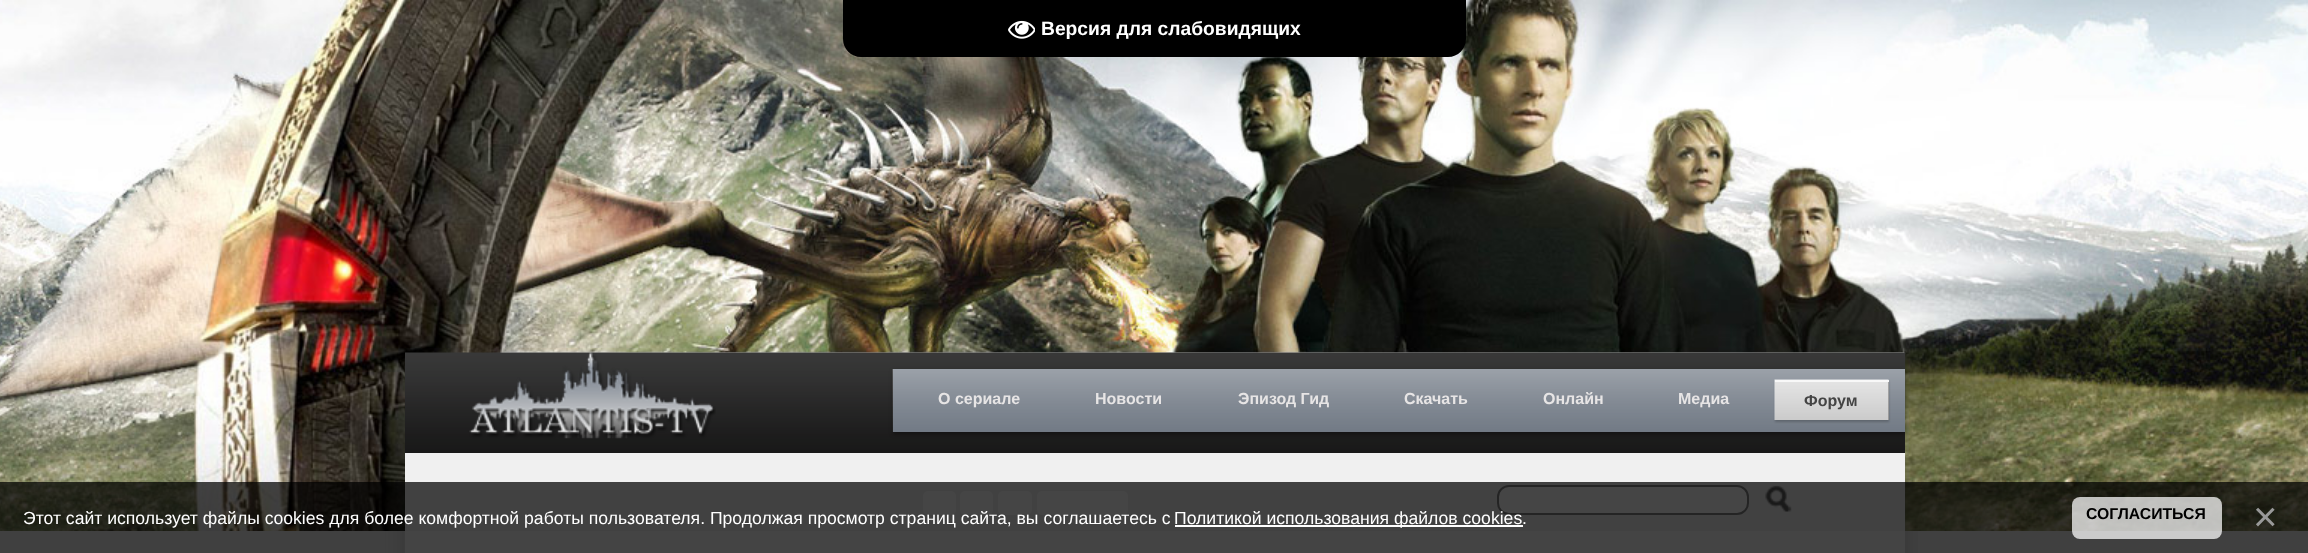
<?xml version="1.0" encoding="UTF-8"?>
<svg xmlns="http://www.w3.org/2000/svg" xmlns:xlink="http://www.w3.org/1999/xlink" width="2308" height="553">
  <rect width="100%" height="100%" fill="#ebebeb" />
  <image x="0" y="0" width="2308" height="531" xlink:href="image1.png" />
  <path d="M 843 0 h 623 v 39 c 0 10 -8 18 -18 18 h -587 c -10 0 -18 -8 -18 -18 z" fill="#000000" />
  <image x="1008" y="20" width="27" height="19" xlink:href="image2.png" />
  <image x="405" y="352" width="1500" height="101" xlink:href="image3.png" />
  <image x="469" y="352" width="247" height="87" xlink:href="image4.png" />
  <rect x="893" y="371" width="1012" height="63" fill="#000000" fill-opacity="0.4" filter="blur(2px)" />
  <rect x="893" y="369" width="1012" height="63" fill="#67707c" />
  <image x="892" y="369" width="1013" height="63" xlink:href="image5.png" />
  <rect x="1775" y="381" width="114" height="41" fill="#000000" fill-opacity="0.2" filter="blur(1px)" />
  <rect x="1775" y="382" width="114" height="38" fill="#666666" />
  <image x="1774" y="379" width="115" height="41" xlink:href="image6.png" />
  <rect x="1775" y="380" width="114" height="2" fill="#f8f8f8" />
  <rect x="405" y="453" width="1500" height="78" fill="#f0f0f0" />
  <rect x="923" y="491" width="33" height="24" rx="5" fill="#ffffff" />
  <rect x="960" y="491" width="33" height="24" rx="5" fill="#ffffff" />
  <rect x="998" y="491" width="34" height="24" rx="5" fill="#ffffff" />
  <rect x="1037" y="491" width="91" height="24" rx="5" fill="#ffffff" />
  <rect x="1498" y="486" width="250" height="28" rx="11" fill="#ffffff" stroke="#878787" stroke-width="2" />
  <image x="1765" y="485" width="27" height="27" xlink:href="image7.png" />
  <image x="385" y="531" width="20" height="22" xlink:href="image8.png" />
  <image x="1905" y="531" width="13" height="22" xlink:href="image9.png" />
  <rect x="405" y="531" width="1500" height="22" fill="#fbfbfb" />
  <rect y="482" width="2308" height="71" fill="#000000" fill-opacity="0.73" />
  <rect x="1175" y="525" width="348" height="2" fill="#ffffff" />
  <rect x="2072" y="497" width="150" height="42" rx="8" fill="#ffffff" fill-opacity="0.73" />
  <text x="1041" y="35" style="font-family: Liberation Sans; font-size: 19.25px; font-weight: bold; fill: #ffffff">Версия для слабовидящих</text>
  <text x="938" y="404" style="font-family: Liberation Sans; font-size: 16px; font-weight: bold; fill: #e7e5e5">О сериале</text>
  <text x="1095" y="404" style="font-family: Liberation Sans; font-size: 16px; font-weight: bold; fill: #e7e5e5">Новости</text>
  <text x="1238" y="404" style="font-family: Liberation Sans; font-size: 16px; font-weight: bold; fill: #e7e5e5">Эпизод Гид</text>
  <text x="1404" y="404" style="font-family: Liberation Sans; font-size: 16px; font-weight: bold; fill: #e7e5e5">Скачать</text>
  <text x="1543" y="404" style="font-family: Liberation Sans; font-size: 16px; font-weight: bold; fill: #e7e5e5">Онлайн</text>
  <text x="1678" y="404" style="font-family: Liberation Sans; font-size: 16px; font-weight: bold; fill: #e7e5e5">Медиа</text>
  <text x="1804" y="406" style="font-family: Liberation Sans; font-size: 16px; font-weight: bold; fill: #444444">Форум</text>
  <text x="23" y="524" style="font-family: Liberation Sans; font-size: 17.6px; fill: #ffffff">Этот сайт использует файлы cookies для более комфортной работы пользователя. Продолжая просмотр страниц сайта, вы соглашаетесь с</text>
  <text x="1174" y="524" style="font-family: Liberation Sans; font-size: 17.6px; fill: #ffffff">Политикой использования файлов cookies</text>
  <text x="1522" y="524" style="font-family: Liberation Sans; font-size: 17.6px; fill: #ffffff">.</text>
  <text x="2086" y="519" style="font-family: Liberation Sans; font-size: 15.75px; font-weight: bold; fill: #000000">СОГЛАСИТЬСЯ</text>
  <text x="2253" y="531" style="font-family: Liberation Sans; font-size: 42px; fill: #999999">×</text>
</svg>
